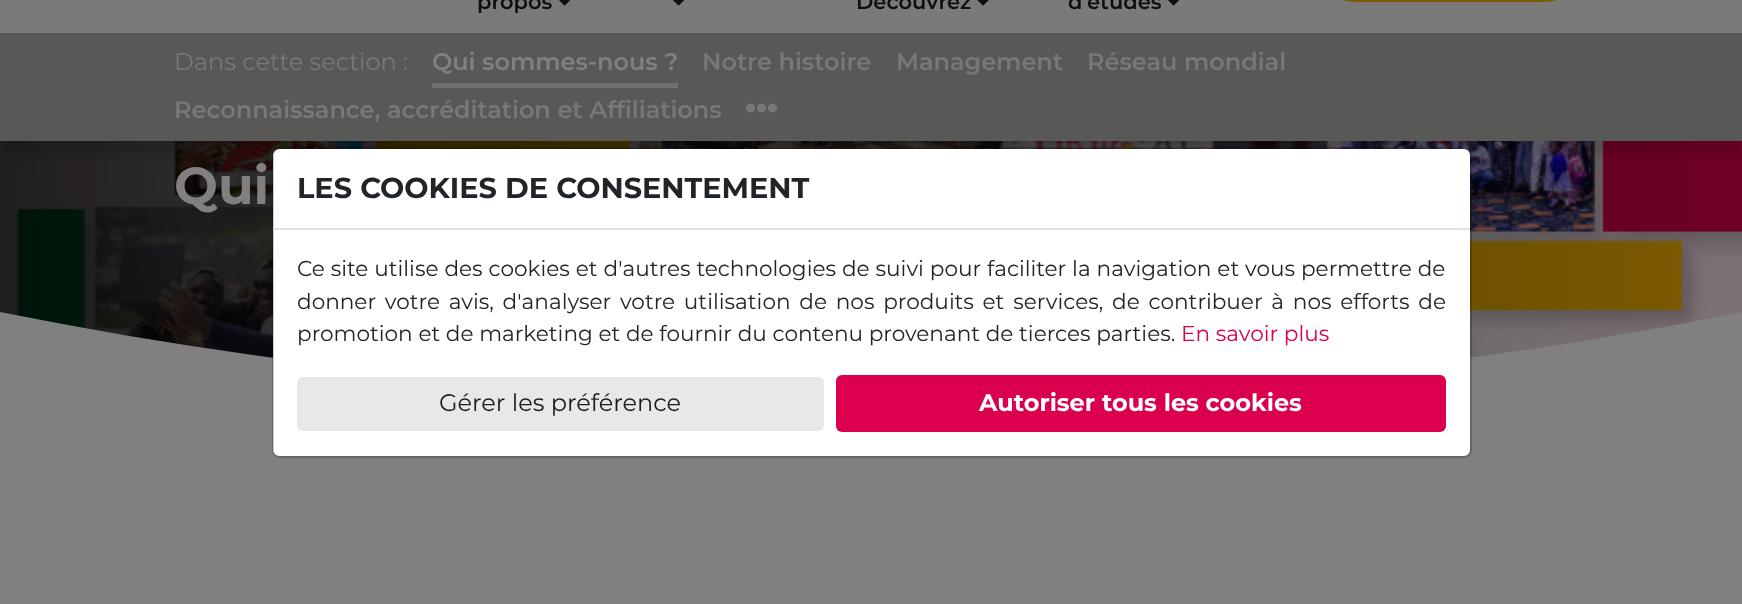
<?xml version="1.0" encoding="UTF-8"?>
<svg xmlns="http://www.w3.org/2000/svg" xmlns:xlink="http://www.w3.org/1999/xlink" width="1742" height="604">
  <defs>
    <linearGradient id="g1" gradientUnits="userSpaceOnUse" x1="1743" y1="104" x2="0" y2="103"><stop offset="0" stop-color="#000000" stop-opacity="0" /><stop offset="1" stop-color="#000000" stop-opacity="0.73" /></linearGradient>
  </defs>
  <rect width="100%" height="100%" fill="#808080" />
  <rect width="1742" height="33" fill="#7a7a7a" />
  <rect x="1331" y="-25" width="238" height="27" rx="25" fill="#7d5b00" />
  <image x="559" y="0" width="12" height="6" xlink:href="image1.png" />
  <image x="673" y="0" width="12" height="6" xlink:href="image1.png" />
  <image x="977" y="0" width="12" height="6" xlink:href="image2.png" />
  <image x="1168" y="0" width="12" height="6" xlink:href="image1.png" />
  <image x="0" y="141" width="1742" height="217" xlink:href="image4.png" />
  <rect y="141" width="1691" height="217" fill="url(#g1)" />
  <rect x="3" y="51" width="1737" height="102" fill="#000000" fill-opacity="0.14" filter="blur(4px)" />
  <rect y="33" width="1742" height="108" fill="#585857" />
  <rect x="432" y="83" width="246" height="5" fill="#707070" />
  <image x="746" y="103" width="31" height="10" xlink:href="image3.png" />
  <path d="M 0 312 c 574 115 1169 115 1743 0 v 88 h -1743 z" fill="#808080" />
  <rect x="273" y="149" width="1197" height="307" rx="6" fill="#ffffff" />
  <rect x="273" y="148" width="1198" height="309" rx="7" fill="none" stroke="#000000" stroke-opacity="0.2" stroke-width="2" />
  <rect x="273" y="228" width="1197" height="2" fill="#dee2e6" />
  <rect x="297" y="377" width="527" height="54" rx="6" fill="#e8e8e8" />
  <rect x="836" y="375" width="610" height="57" rx="6" fill="#db004d" />
  <text x="477" y="9" style="font-family: Montserrat; font-size: 21px; font-weight: 600; fill: #0f0f0e">propos</text>
  <text x="856" y="9" style="font-family: Montserrat; font-size: 21px; font-weight: 600; fill: #0f0f0e">Découvrez</text>
  <text x="1068" y="9" style="font-family: Montserrat; font-size: 21px; font-weight: 600; fill: #0f0f0e">d’études</text>
  <text x="174" y="70" style="font-family: Montserrat; font-size: 24px; fill: #787878">Dans cette section :</text>
  <text x="432" y="70" style="font-family: Montserrat; font-size: 24px; font-weight: 600; fill: #808080">Qui sommes-nous ?</text>
  <text x="702" y="70" style="font-family: Montserrat; font-size: 24px; font-weight: 600; fill: #787878">Notre histoire</text>
  <text x="896" y="70" style="font-family: Montserrat; font-size: 24px; font-weight: 600; fill: #787878">Management</text>
  <text x="1087" y="70" style="font-family: Montserrat; font-size: 24px; font-weight: 600; fill: #787878">Réseau mondial</text>
  <text x="174" y="118" style="font-family: Montserrat; font-size: 24px; font-weight: 600; fill: #787878">Reconnaissance, accréditation et Affiliations</text>
  <text x="174" y="204" style="font-family: Montserrat; font-size: 52px; font-weight: bold; fill: #808080">Qui</text>
  <text x="297" y="198" style="font-family: Montserrat; font-size: 28.75px; font-weight: bold; fill: #212529">LES COOKIES DE CONSENTEMENT</text>
  <text x="297" y="276" word-spacing="0.25" style="font-family: Montserrat; font-size: 21.6px; fill: #212529">Ce site utilise des cookies et d'autres technologies de suivi pour faciliter la navigation et vous permettre de</text>
  <text x="297" y="309" word-spacing="3.1" style="font-family: Montserrat; font-size: 21.6px; fill: #212529">donner votre avis, d'analyser votre utilisation de nos produits et services, de contribuer à nos efforts de</text>
  <text x="297" y="341" style="font-family: Montserrat; font-size: 21.6px; fill: #212529">promotion et de marketing et de fournir du contenu provenant de tierces parties.</text>
  <text x="1181" y="341" style="font-family: Montserrat; font-size: 21.6px; fill: #db004d">En savoir plus</text>
  <text x="439" y="411" style="font-family: Montserrat; font-size: 24px; fill: #1d1d1b">Gérer les préférence</text>
  <text x="979" y="411" style="font-family: Montserrat; font-size: 24px; font-weight: bold; fill: #ffffff">Autoriser tous les cookies</text>
</svg>
